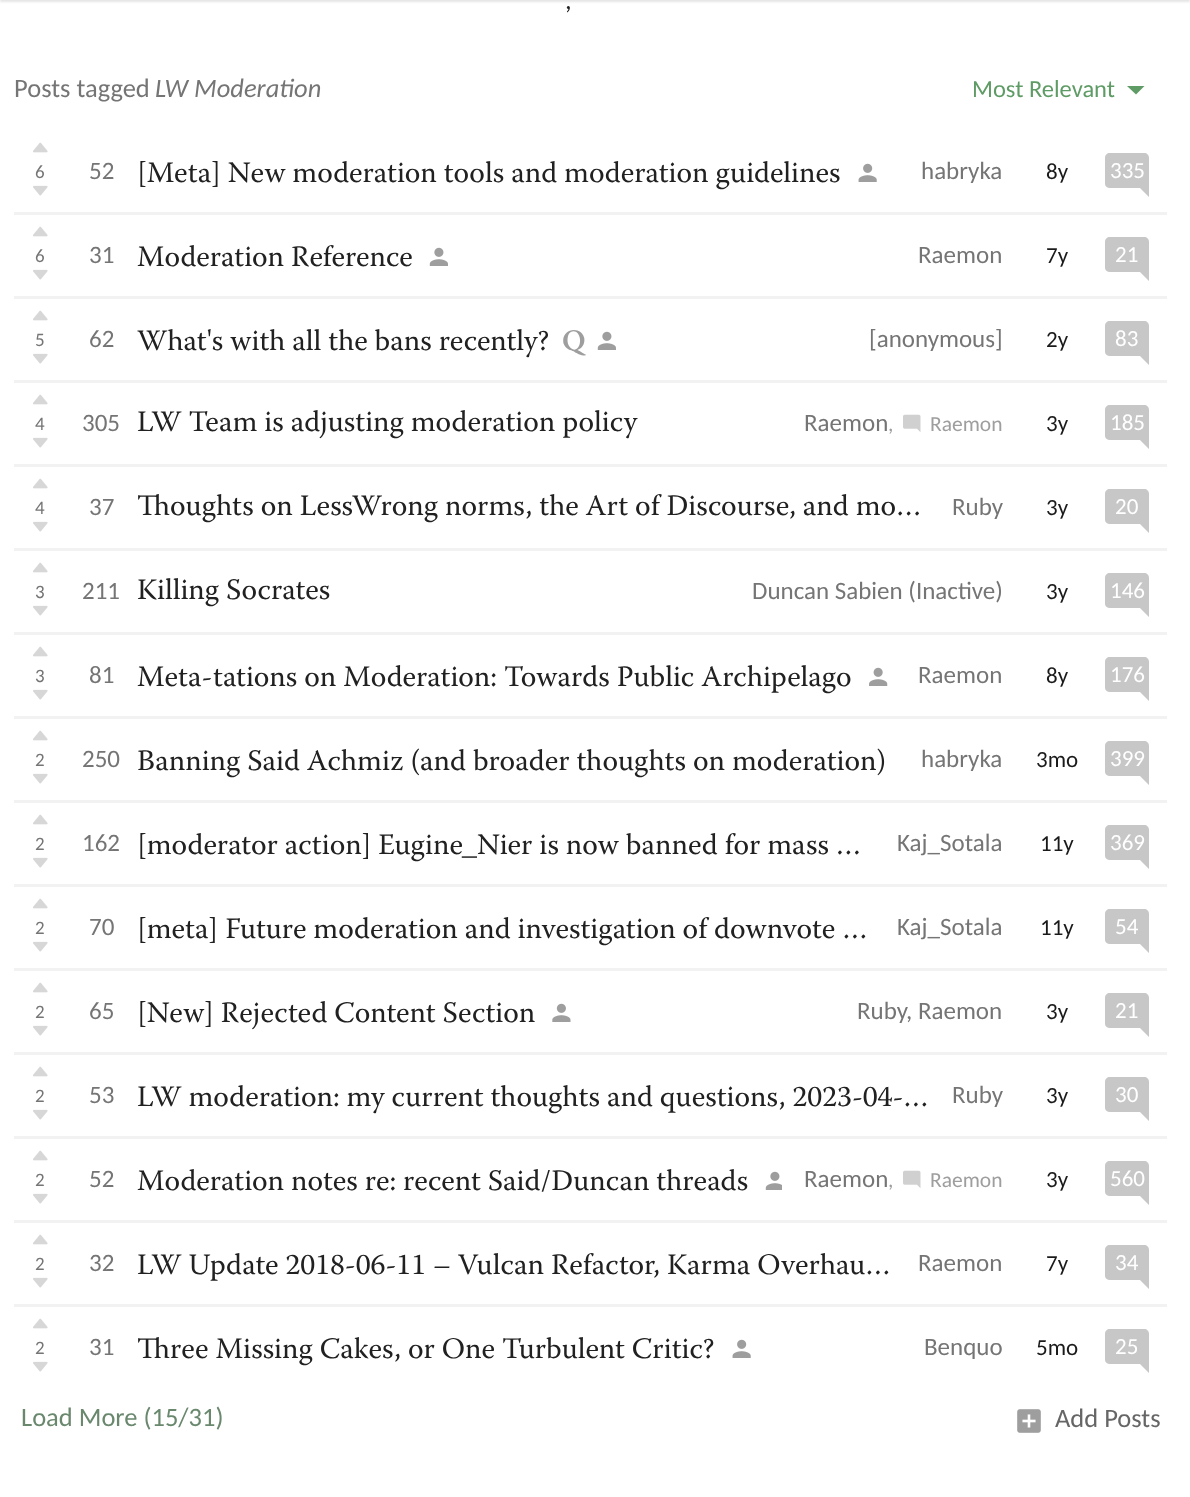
<?xml version="1.0" encoding="UTF-8"?>
<svg xmlns="http://www.w3.org/2000/svg" xmlns:xlink="http://www.w3.org/1999/xlink" width="1190" height="1497">
  <rect width="100%" height="100%" fill="#ffffff" />
  <rect y="-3" width="1190" height="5" fill="#000000" fill-opacity="0.05" filter="blur(1px)" />
  <rect y="-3" width="1190" height="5" fill="#000000" fill-opacity="0.05" filter="blur(1px)" />
  <path d="M 1127 86 l 9 8.5 l 8.5 -8.5 z" fill="#5f9b65" />
  <rect x="14" y="212" width="1153" height="3" fill="#f2f2f2" />
  <image x="33" y="142" width="15" height="11" xlink:href="image1.png" />
  <image x="33" y="185" width="15" height="11" xlink:href="image2.png" />
  <image x="858" y="163" width="19" height="19" xlink:href="image3.png" />
  <path d="M 1149 158 c 0 -3 -2 -5 -5 -5 h -34 c -3 0 -5 2 -5 5 v 26 c 0 2 2 4 5 4 h 30 l 9 9 z" fill="#c7c7c7" />
  <rect x="14" y="296" width="1153" height="3" fill="#f2f2f2" />
  <image x="33" y="226" width="15" height="11" xlink:href="image1.png" />
  <image x="33" y="269" width="15" height="11" xlink:href="image2.png" />
  <image x="429" y="247" width="19" height="19" xlink:href="image4.png" />
  <path d="M 1149 242 c 0 -3 -2 -5 -5 -5 h -34 c -3 0 -5 2 -5 5 v 26 c 0 2 2 4 5 4 h 30 l 9 9 z" fill="#c7c7c7" />
  <rect x="14" y="380" width="1153" height="3" fill="#f2f2f2" />
  <image x="33" y="310" width="15" height="11" xlink:href="image1.png" />
  <image x="33" y="353" width="15" height="11" xlink:href="image2.png" />
  <image x="597" y="331" width="19" height="19" xlink:href="image4.png" />
  <path d="M 1149 326 c 0 -3 -2 -5 -5 -5 h -34 c -3 0 -5 2 -5 5 v 26 c 0 2 2 4 5 4 h 30 l 9 9 z" fill="#c7c7c7" />
  <rect x="14" y="464" width="1153" height="3" fill="#f2f2f2" />
  <image x="33" y="394" width="15" height="11" xlink:href="image1.png" />
  <image x="33" y="437" width="15" height="11" xlink:href="image2.png" />
  <image x="903" y="414" width="18" height="18" xlink:href="image5.png" />
  <path d="M 1149 410 c 0 -3 -2 -5 -5 -5 h -34 c -3 0 -5 2 -5 5 v 26 c 0 2 2 4 5 4 h 30 l 9 9 z" fill="#c7c7c7" />
  <rect x="14" y="548" width="1153" height="3" fill="#f2f2f2" />
  <image x="33" y="478" width="15" height="11" xlink:href="image1.png" />
  <image x="33" y="521" width="15" height="11" xlink:href="image2.png" />
  <path d="M 1149 494 c 0 -3 -2 -5 -5 -5 h -34 c -3 0 -5 2 -5 5 v 26 c 0 2 2 4 5 4 h 30 l 9 9 z" fill="#c7c7c7" />
  <rect x="14" y="632" width="1153" height="3" fill="#f2f2f2" />
  <image x="33" y="562" width="15" height="11" xlink:href="image1.png" />
  <image x="33" y="605" width="15" height="11" xlink:href="image2.png" />
  <path d="M 1149 578 c 0 -3 -2 -5 -5 -5 h -34 c -3 0 -5 2 -5 5 v 26 c 0 2 2 4 5 4 h 30 l 9 9 z" fill="#c7c7c7" />
  <rect x="14" y="716" width="1153" height="3" fill="#f2f2f2" />
  <image x="33" y="646" width="15" height="11" xlink:href="image1.png" />
  <image x="33" y="689" width="15" height="11" xlink:href="image2.png" />
  <image x="869" y="667" width="19" height="19" xlink:href="image6.png" />
  <path d="M 1149 662 c 0 -3 -2 -5 -5 -5 h -34 c -3 0 -5 2 -5 5 v 26 c 0 2 2 4 5 4 h 30 l 9 9 z" fill="#c7c7c7" />
  <rect x="14" y="800" width="1153" height="3" fill="#f2f2f2" />
  <image x="33" y="730" width="15" height="11" xlink:href="image1.png" />
  <image x="33" y="773" width="15" height="11" xlink:href="image2.png" />
  <path d="M 1149 746 c 0 -3 -2 -5 -5 -5 h -34 c -3 0 -5 2 -5 5 v 26 c 0 2 2 4 5 4 h 30 l 9 9 z" fill="#c7c7c7" />
  <rect x="14" y="884" width="1153" height="3" fill="#f2f2f2" />
  <image x="33" y="814" width="15" height="11" xlink:href="image1.png" />
  <image x="33" y="857" width="15" height="11" xlink:href="image2.png" />
  <path d="M 1149 830 c 0 -3 -2 -5 -5 -5 h -34 c -3 0 -5 2 -5 5 v 26 c 0 2 2 4 5 4 h 30 l 9 9 z" fill="#c7c7c7" />
  <rect x="14" y="968" width="1153" height="3" fill="#f2f2f2" />
  <image x="33" y="898" width="15" height="11" xlink:href="image1.png" />
  <image x="33" y="941" width="15" height="11" xlink:href="image2.png" />
  <path d="M 1149 914 c 0 -3 -2 -5 -5 -5 h -34 c -3 0 -5 2 -5 5 v 26 c 0 2 2 4 5 4 h 30 l 9 9 z" fill="#c7c7c7" />
  <rect x="14" y="1052" width="1153" height="3" fill="#f2f2f2" />
  <image x="33" y="982" width="15" height="11" xlink:href="image1.png" />
  <image x="33" y="1025" width="15" height="11" xlink:href="image2.png" />
  <image x="552" y="1003" width="19" height="19" xlink:href="image7.png" />
  <path d="M 1149 998 c 0 -3 -2 -5 -5 -5 h -34 c -3 0 -5 2 -5 5 v 26 c 0 2 2 4 5 4 h 30 l 9 9 z" fill="#c7c7c7" />
  <rect x="14" y="1136" width="1153" height="3" fill="#f2f2f2" />
  <image x="33" y="1066" width="15" height="11" xlink:href="image1.png" />
  <image x="33" y="1109" width="15" height="11" xlink:href="image2.png" />
  <path d="M 1149 1082 c 0 -3 -2 -5 -5 -5 h -34 c -3 0 -5 2 -5 5 v 26 c 0 2 2 4 5 4 h 30 l 9 9 z" fill="#c7c7c7" />
  <rect x="14" y="1220" width="1153" height="3" fill="#f2f2f2" />
  <image x="33" y="1150" width="15" height="11" xlink:href="image1.png" />
  <image x="33" y="1193" width="15" height="11" xlink:href="image2.png" />
  <image x="765" y="1171" width="17" height="19" xlink:href="image8.png" />
  <image x="903" y="1170" width="18" height="18" xlink:href="image5.png" />
  <path d="M 1149 1166 c 0 -3 -2 -5 -5 -5 h -34 c -3 0 -5 2 -5 5 v 26 c 0 2 2 4 5 4 h 30 l 9 9 z" fill="#c7c7c7" />
  <rect x="14" y="1304" width="1153" height="3" fill="#f2f2f2" />
  <image x="33" y="1234" width="15" height="11" xlink:href="image1.png" />
  <image x="33" y="1277" width="15" height="11" xlink:href="image2.png" />
  <path d="M 1149 1250 c 0 -3 -2 -5 -5 -5 h -34 c -3 0 -5 2 -5 5 v 26 c 0 2 2 4 5 4 h 30 l 9 9 z" fill="#c7c7c7" />
  <image x="33" y="1318" width="15" height="11" xlink:href="image1.png" />
  <image x="33" y="1361" width="15" height="11" xlink:href="image2.png" />
  <image x="732" y="1339" width="19" height="19" xlink:href="image3.png" />
  <path d="M 1149 1334 c 0 -3 -2 -5 -5 -5 h -34 c -3 0 -5 2 -5 5 v 26 c 0 2 2 4 5 4 h 30 l 9 9 z" fill="#c7c7c7" />
  <image x="1017" y="1409" width="24" height="24" xlink:href="image9.png" />
  <text x="565" y="9" style="font-family: Carlito; font-size: 26.5px; fill: #212121">,</text>
  <text x="14" y="97" style="font-family: Carlito; font-size: 26.5px; fill: #757575">Posts tagged</text>
  <text x="155" y="97" style="font-family: Carlito; font-size: 26.5px; font-style: italic; fill: #757575">LW Moderation</text>
  <text x="972" y="97" style="font-family: Carlito; font-size: 24.5px; fill: #5f9b65">Most Relevant</text>
  <text x="35" y="178" style="font-family: Carlito; font-size: 19px; fill: #757575">6</text>
  <text x="89" y="179" style="font-family: Carlito; font-size: 25px; fill: #757575">52</text>
  <text x="137" y="182" style="font-family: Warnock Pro; font-size: 29.6px; fill: #212121">[Meta] New moderation tools and moderation guidelines</text>
  <text x="921" y="179" style="font-family: Carlito; font-size: 25px; fill: #757575">habryka</text>
  <text x="1046" y="179" style="font-family: Carlito; font-size: 23px; fill: #1a1a1a">8y</text>
  <text x="1110" y="178" style="font-family: Carlito; font-size: 23px; fill: #ffffff">335</text>
  <text x="35" y="262" style="font-family: Carlito; font-size: 19px; fill: #757575">6</text>
  <text x="89" y="263" style="font-family: Carlito; font-size: 25px; fill: #757575">31</text>
  <text x="137" y="266" style="font-family: Warnock Pro; font-size: 29.6px; fill: #212121">Moderation Reference</text>
  <text x="918" y="263" style="font-family: Carlito; font-size: 25px; fill: #757575">Raemon</text>
  <text x="1046" y="263" style="font-family: Carlito; font-size: 23px; fill: #1a1a1a">7y</text>
  <text x="1115" y="262" style="font-family: Carlito; font-size: 23px; fill: #ffffff">21</text>
  <text x="35" y="346" style="font-family: Carlito; font-size: 19px; fill: #757575">5</text>
  <text x="89" y="347" style="font-family: Carlito; font-size: 25px; fill: #757575">62</text>
  <text x="137" y="350" style="font-family: Warnock Pro; font-size: 29.6px; fill: #212121">What's with all the bans recently?</text>
  <text x="562" y="350" style="font-family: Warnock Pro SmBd; font-size: 29.6px; font-weight: 600; fill: #9e9e9e">Q</text>
  <text x="869" y="347" style="font-family: Carlito; font-size: 25px; fill: #757575">[anonymous]</text>
  <text x="1046" y="347" style="font-family: Carlito; font-size: 23px; fill: #1a1a1a">2y</text>
  <text x="1115" y="346" style="font-family: Carlito; font-size: 23px; fill: #ffffff">83</text>
  <text x="35" y="430" style="font-family: Carlito; font-size: 19px; fill: #757575">4</text>
  <text x="82" y="431" style="font-family: Carlito; font-size: 25px; fill: #757575">305</text>
  <text x="137" y="431" style="font-family: Warnock Pro; font-size: 29.6px; fill: #212121">LW Team is adjusting moderation policy</text>
  <text x="804" y="431" style="font-family: Carlito; font-size: 25px; fill: #757575">Raemon</text>
  <text x="888" y="431" style="font-family: Carlito; font-size: 21.5px; fill: #9e9e9e">,</text>
  <text x="930" y="431" style="font-family: Carlito; font-size: 21.5px; fill: #9e9e9e">Raemon</text>
  <text x="1046" y="431" style="font-family: Carlito; font-size: 23px; fill: #1a1a1a">3y</text>
  <text x="1110" y="430" style="font-family: Carlito; font-size: 23px; fill: #ffffff">185</text>
  <text x="35" y="514" style="font-family: Carlito; font-size: 19px; fill: #757575">4</text>
  <text x="89" y="515" style="font-family: Carlito; font-size: 25px; fill: #757575">37</text>
  <text x="137" y="515" style="font-family: Warnock Pro; font-size: 29.6px; fill: #212121">Thoughts on LessWrong norms, the Art of Discourse, and mo…</text>
  <text x="952" y="515" style="font-family: Carlito; font-size: 25px; fill: #757575">Ruby</text>
  <text x="1046" y="515" style="font-family: Carlito; font-size: 23px; fill: #1a1a1a">3y</text>
  <text x="1115" y="514" style="font-family: Carlito; font-size: 23px; fill: #ffffff">20</text>
  <text x="35" y="598" style="font-family: Carlito; font-size: 19px; fill: #757575">3</text>
  <text x="82" y="599" style="font-family: Carlito; font-size: 25px; fill: #757575">211</text>
  <text x="137" y="599" style="font-family: Warnock Pro; font-size: 29.6px; fill: #212121">Killing Socrates</text>
  <text x="752" y="599" style="font-family: Carlito; font-size: 25px; fill: #757575">Duncan Sabien (Inactive)</text>
  <text x="1046" y="599" style="font-family: Carlito; font-size: 23px; fill: #1a1a1a">3y</text>
  <text x="1110" y="598" style="font-family: Carlito; font-size: 23px; fill: #ffffff">146</text>
  <text x="35" y="682" style="font-family: Carlito; font-size: 19px; fill: #757575">3</text>
  <text x="89" y="683" style="font-family: Carlito; font-size: 25px; fill: #757575">81</text>
  <text x="137" y="686" style="font-family: Warnock Pro; font-size: 29.6px; fill: #212121">Meta-tations on Moderation: Towards Public Archipelago</text>
  <text x="918" y="683" style="font-family: Carlito; font-size: 25px; fill: #757575">Raemon</text>
  <text x="1046" y="683" style="font-family: Carlito; font-size: 23px; fill: #1a1a1a">8y</text>
  <text x="1110" y="682" style="font-family: Carlito; font-size: 23px; fill: #ffffff">176</text>
  <text x="35" y="766" style="font-family: Carlito; font-size: 19px; fill: #757575">2</text>
  <text x="82" y="767" style="font-family: Carlito; font-size: 25px; fill: #757575">250</text>
  <text x="137" y="770" style="font-family: Warnock Pro; font-size: 29.6px; fill: #212121">Banning Said Achmiz (and broader thoughts on moderation)</text>
  <text x="921" y="767" style="font-family: Carlito; font-size: 25px; fill: #757575">habryka</text>
  <text x="1036" y="767" style="font-family: Carlito; font-size: 23px; fill: #1a1a1a">3mo</text>
  <text x="1110" y="766" style="font-family: Carlito; font-size: 23px; fill: #ffffff">399</text>
  <text x="35" y="850" style="font-family: Carlito; font-size: 19px; fill: #757575">2</text>
  <text x="82" y="851" style="font-family: Carlito; font-size: 25px; fill: #757575">162</text>
  <text x="137" y="854" style="font-family: Warnock Pro; font-size: 29.6px; fill: #212121">[moderator action] Eugine</text>
  <text x="477" y="854" style="font-family: Warnock Pro; font-size: 29.6px; fill: #212121">Nier is now banned for mass …</text>
  <text x="462" y="854" style="font-family: Liberation Serif; font-size: 29.6px; fill: #212121">_</text>
  <text x="897" y="851" style="font-family: Carlito; font-size: 25px; fill: #757575">Kaj_Sotala</text>
  <text x="1040" y="851" style="font-family: Carlito; font-size: 23px; fill: #1a1a1a">11y</text>
  <text x="1110" y="850" style="font-family: Carlito; font-size: 23px; fill: #ffffff">369</text>
  <text x="35" y="934" style="font-family: Carlito; font-size: 19px; fill: #757575">2</text>
  <text x="89" y="935" style="font-family: Carlito; font-size: 25px; fill: #757575">70</text>
  <text x="137" y="938" style="font-family: Warnock Pro; font-size: 29.6px; fill: #212121">[meta] Future moderation and investigation of downvote …</text>
  <text x="897" y="935" style="font-family: Carlito; font-size: 25px; fill: #757575">Kaj_Sotala</text>
  <text x="1040" y="935" style="font-family: Carlito; font-size: 23px; fill: #1a1a1a">11y</text>
  <text x="1115" y="934" style="font-family: Carlito; font-size: 23px; fill: #ffffff">54</text>
  <text x="35" y="1018" style="font-family: Carlito; font-size: 19px; fill: #757575">2</text>
  <text x="89" y="1019" style="font-family: Carlito; font-size: 25px; fill: #757575">65</text>
  <text x="137" y="1022" style="font-family: Warnock Pro; font-size: 29.6px; fill: #212121">[New] Rejected Content Section</text>
  <text x="857" y="1019" style="font-family: Carlito; font-size: 25px; fill: #757575">Ruby</text>
  <text x="906" y="1019" style="font-family: Carlito; font-size: 25px; fill: #757575">, Raemon</text>
  <text x="1046" y="1019" style="font-family: Carlito; font-size: 23px; fill: #1a1a1a">3y</text>
  <text x="1115" y="1018" style="font-family: Carlito; font-size: 23px; fill: #ffffff">21</text>
  <text x="35" y="1102" style="font-family: Carlito; font-size: 19px; fill: #757575">2</text>
  <text x="89" y="1103" style="font-family: Carlito; font-size: 25px; fill: #757575">53</text>
  <text x="137" y="1106" style="font-family: Warnock Pro; font-size: 29.6px; fill: #212121">LW moderation: my current thoughts and questions, 2023-04-…</text>
  <text x="952" y="1103" style="font-family: Carlito; font-size: 25px; fill: #757575">Ruby</text>
  <text x="1046" y="1103" style="font-family: Carlito; font-size: 23px; fill: #1a1a1a">3y</text>
  <text x="1115" y="1102" style="font-family: Carlito; font-size: 23px; fill: #ffffff">30</text>
  <text x="35" y="1186" style="font-family: Carlito; font-size: 19px; fill: #757575">2</text>
  <text x="89" y="1187" style="font-family: Carlito; font-size: 25px; fill: #757575">52</text>
  <text x="137" y="1190" style="font-family: Warnock Pro; font-size: 29.6px; fill: #212121">Moderation notes re: recent Said/Duncan threads</text>
  <text x="804" y="1187" style="font-family: Carlito; font-size: 25px; fill: #757575">Raemon</text>
  <text x="888" y="1187" style="font-family: Carlito; font-size: 21.5px; fill: #9e9e9e">,</text>
  <text x="930" y="1187" style="font-family: Carlito; font-size: 21.5px; fill: #9e9e9e">Raemon</text>
  <text x="1046" y="1187" style="font-family: Carlito; font-size: 23px; fill: #1a1a1a">3y</text>
  <text x="1110" y="1186" style="font-family: Carlito; font-size: 23px; fill: #ffffff">560</text>
  <text x="35" y="1270" style="font-family: Carlito; font-size: 19px; fill: #757575">2</text>
  <text x="89" y="1271" style="font-family: Carlito; font-size: 25px; fill: #757575">32</text>
  <text x="137" y="1274" style="font-family: Warnock Pro; font-size: 29.6px; fill: #212121">LW Update 2018-06-11 – Vulcan Refactor, Karma Overhau…</text>
  <text x="918" y="1271" style="font-family: Carlito; font-size: 25px; fill: #757575">Raemon</text>
  <text x="1046" y="1271" style="font-family: Carlito; font-size: 23px; fill: #1a1a1a">7y</text>
  <text x="1115" y="1270" style="font-family: Carlito; font-size: 23px; fill: #ffffff">34</text>
  <text x="35" y="1354" style="font-family: Carlito; font-size: 19px; fill: #757575">2</text>
  <text x="89" y="1355" style="font-family: Carlito; font-size: 25px; fill: #757575">31</text>
  <text x="137" y="1358" style="font-family: Warnock Pro; font-size: 29.6px; fill: #212121">Three Missing Cakes, or One Turbulent Critic?</text>
  <text x="924" y="1355" style="font-family: Carlito; font-size: 25px; fill: #757575">Benquo</text>
  <text x="1036" y="1355" style="font-family: Carlito; font-size: 23px; fill: #1a1a1a">5mo</text>
  <text x="1115" y="1354" style="font-family: Carlito; font-size: 23px; fill: #ffffff">25</text>
  <text x="21" y="1426" style="font-family: Carlito; font-size: 26.5px; fill: #69886e">Load More (15/31)</text>
  <text x="1055" y="1427" style="font-family: Carlito; font-size: 26.5px; fill: #666666">Add Posts</text>
</svg>
